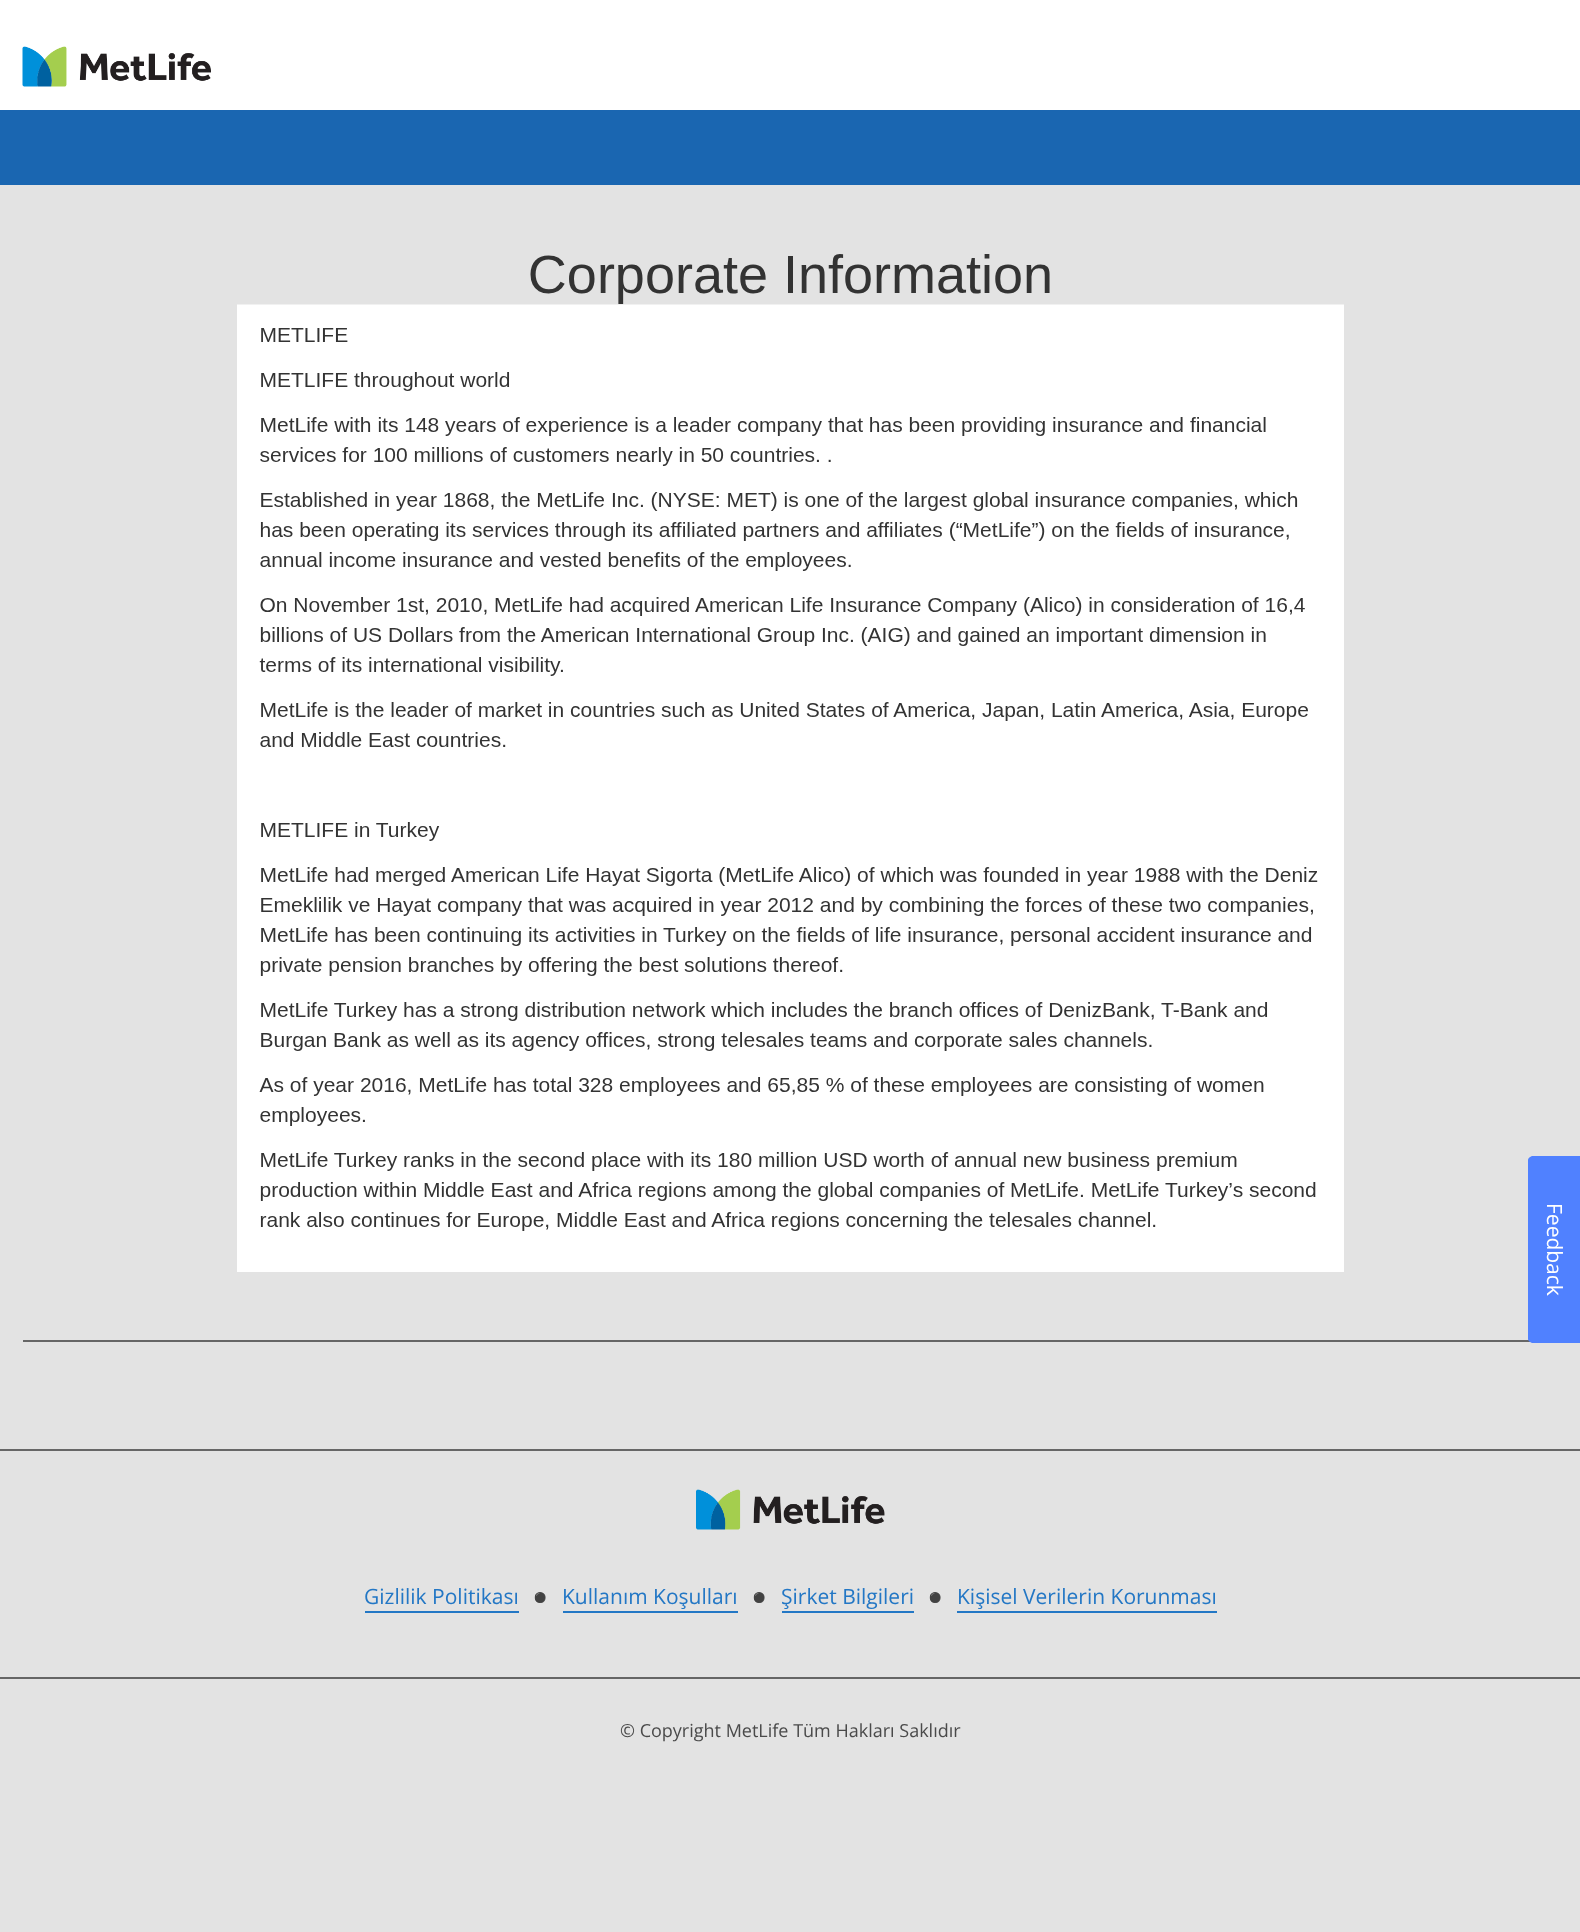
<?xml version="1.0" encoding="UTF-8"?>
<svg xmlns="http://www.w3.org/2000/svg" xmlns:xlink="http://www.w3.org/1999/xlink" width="1580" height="1932">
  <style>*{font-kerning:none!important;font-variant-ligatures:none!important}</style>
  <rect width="100%" height="100%" fill="#e3e3e3" />
  <rect x="23" y="1340" width="1508" height="2" fill="#666666" />
  <path d="M 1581 1156 v 187 h -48 c -2 0 -5 -2 -5 -4 v -179 c 0 -2 3 -4 5 -4 z" fill="#5081ff" />
  <rect width="1580" height="110" fill="#ffffff" />
  <image x="22" y="46" width="189" height="41" xlink:href="image1.png" />
  <rect y="110" width="1580" height="75" fill="#1a66b1" />
  <image x="237" y="185" width="1107" height="1087" xlink:href="image2.png" />
  <rect y="1449" width="1580" height="2" fill="#666666" />
  <image x="696" y="1489" width="189" height="41" xlink:href="image3.png" />
  <rect x="365" y="1611" width="154" height="2" fill="#2377c5" />
  <rect x="563" y="1611" width="175" height="2" fill="#2377c5" />
  <rect x="782" y="1611" width="132" height="2" fill="#2377c5" />
  <rect x="957" y="1611" width="260" height="2" fill="#2377c5" />
  <rect y="1677" width="1580" height="2" fill="#666666" />
  <text x="1547" y="1203" transform="rotate(90 1547 1203)" style="font-family: Open Sans; font-size: 21px; fill: #ffffff">Feedback</text>
  <text x="364" y="1604" style="font-family: Open Sans; font-size: 21px; fill: #2377c5">Gizlilik Politikası</text>
  <text x="534" y="1601" style="font-family: Noto Color Emoji; font-size: 10px; fill: #4a4a4a">⚫</text>
  <text x="562" y="1604" style="font-family: Open Sans; font-size: 21px; fill: #2377c5">Kullanım Koşulları</text>
  <text x="753" y="1601" style="font-family: Noto Color Emoji; font-size: 10px; fill: #4a4a4a">⚫</text>
  <text x="781" y="1604" style="font-family: Open Sans; font-size: 21px; fill: #2377c5">Şirket Bilgileri</text>
  <text x="929" y="1601" style="font-family: Noto Color Emoji; font-size: 10px; fill: #4a4a4a">⚫</text>
  <text x="957" y="1604" style="font-family: Open Sans; font-size: 21px; fill: #2377c5">Kişisel Verilerin Korunması</text>
  <text x="620" y="1737" style="font-family: Open Sans; font-size: 18px; fill: #4a4a4a">© Copyright MetLife Tüm Hakları Saklıdır</text>
</svg>
